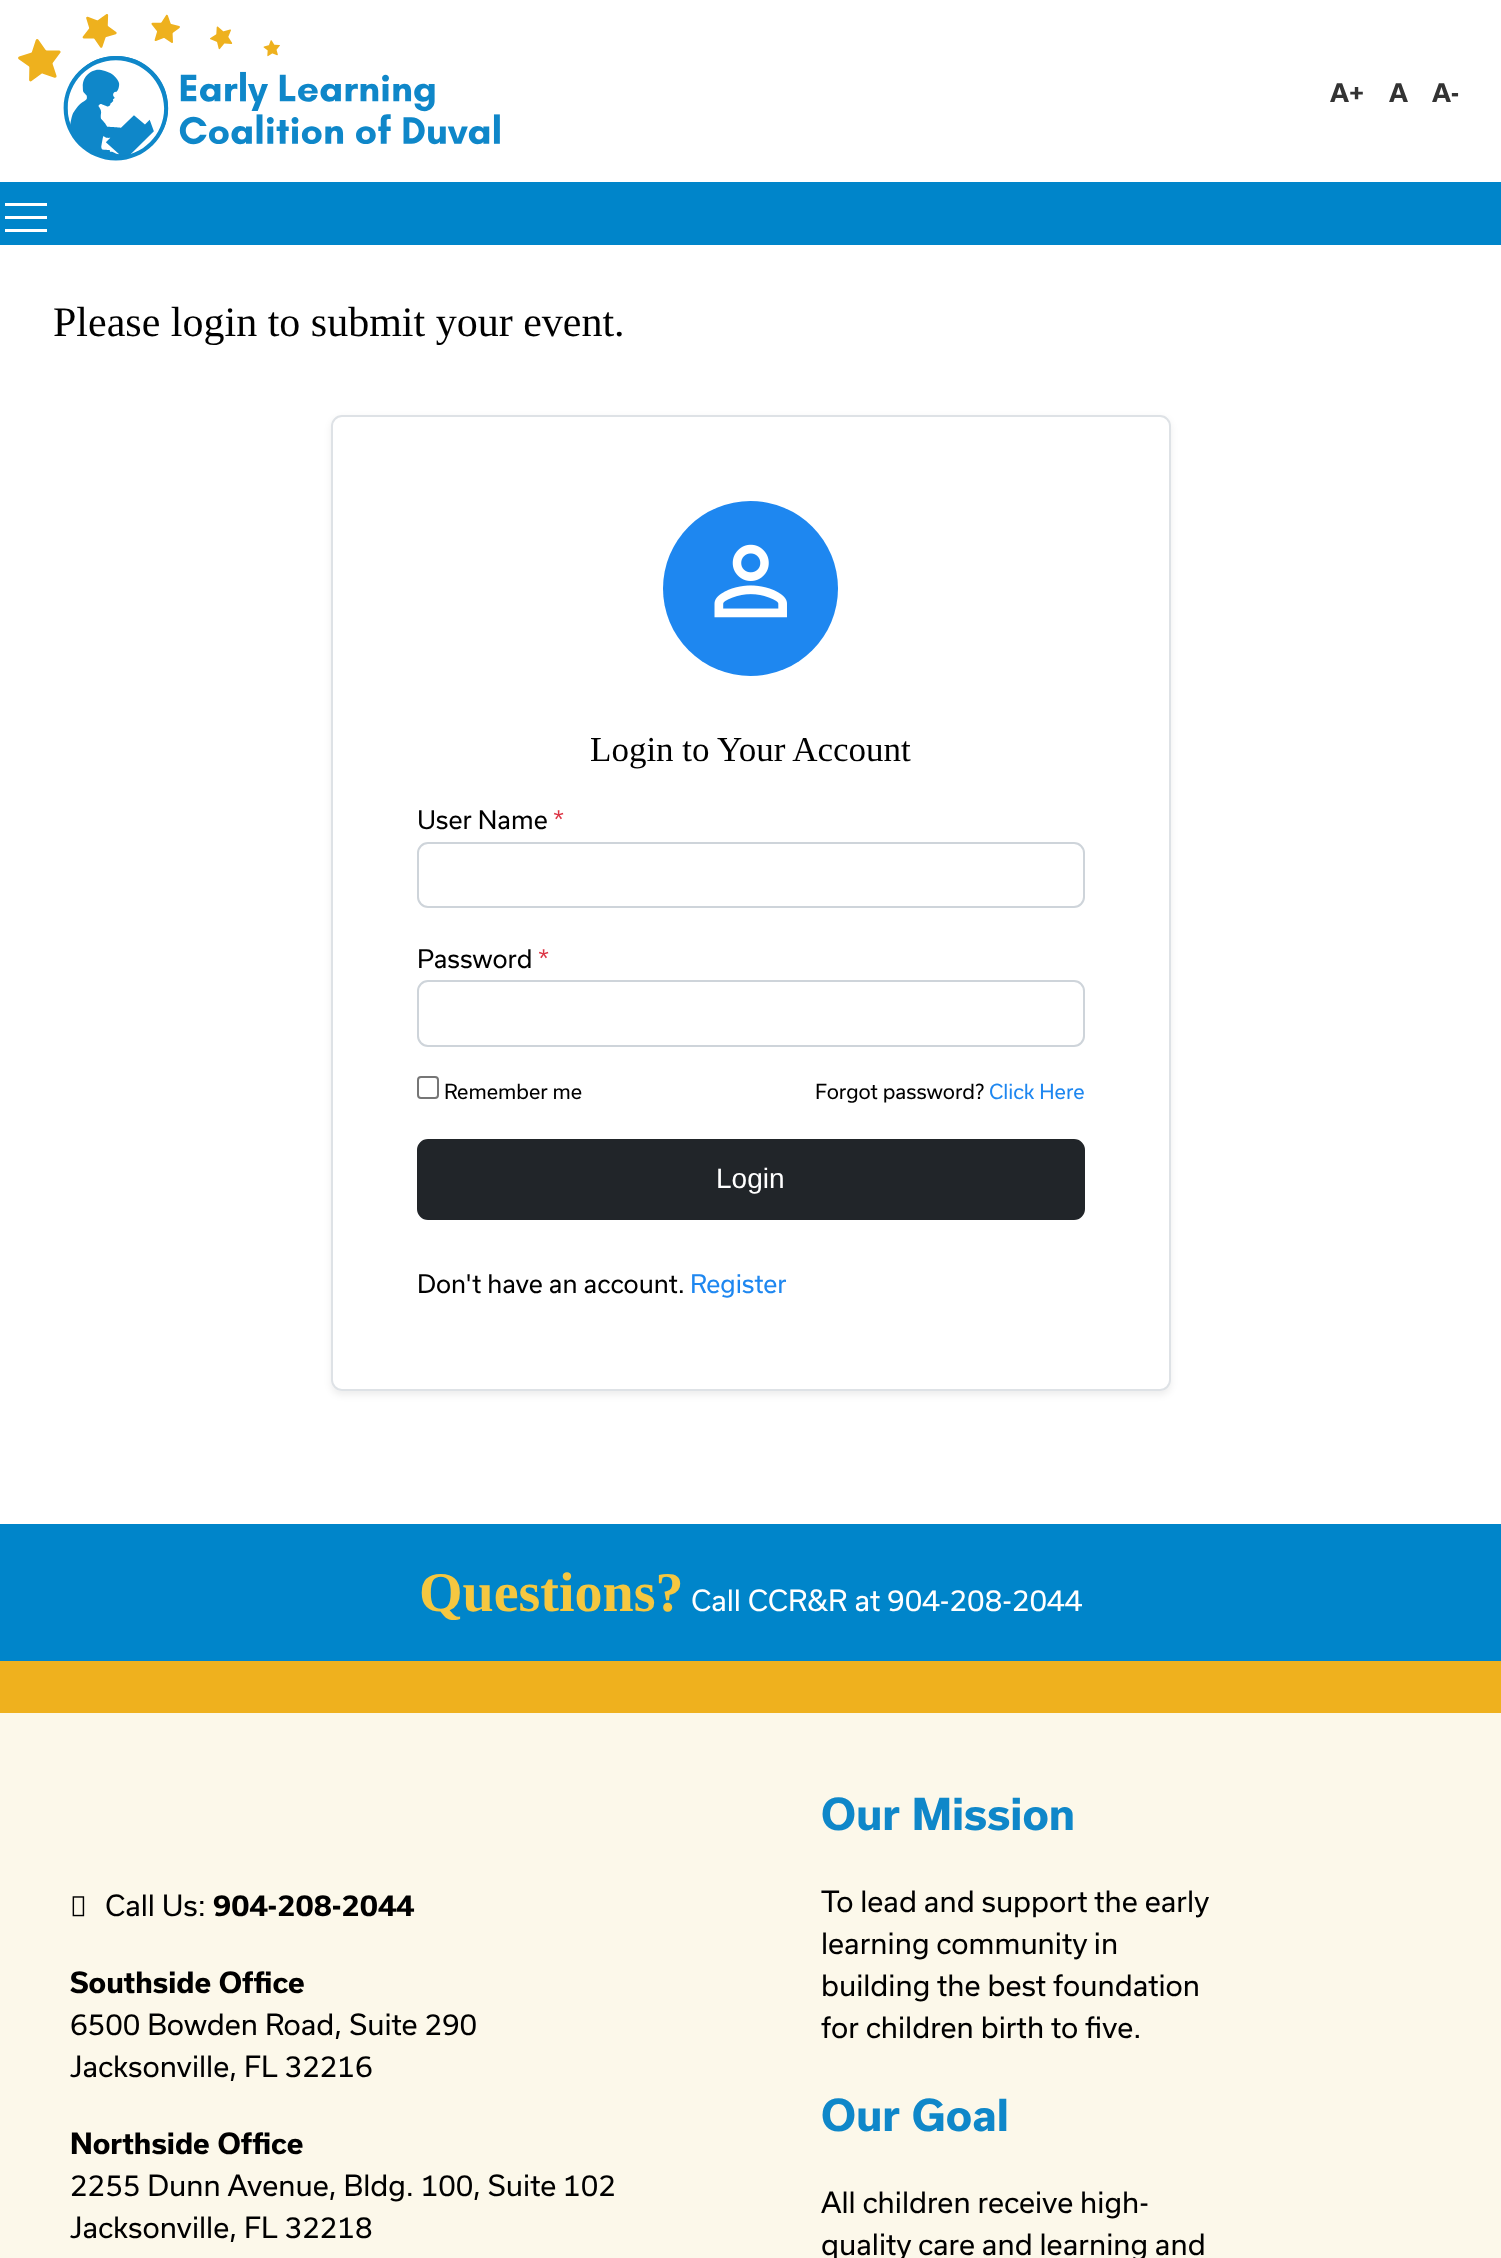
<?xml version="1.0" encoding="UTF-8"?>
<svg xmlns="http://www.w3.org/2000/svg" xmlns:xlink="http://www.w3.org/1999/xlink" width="1501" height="2258">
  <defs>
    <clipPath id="clip1"><path d="M 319 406 h 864 v 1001 h -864 z m 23 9 h 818 c 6 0 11 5 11 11 v 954 c 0 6 -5 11 -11 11 h -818 c -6 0 -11 -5 -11 -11 v -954 c 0 -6 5 -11 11 -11 z" clip-rule="evenodd" /></clipPath>
  </defs>
  <rect width="100%" height="100%" fill="#ffffff" />
  <image x="18" y="14" width="482" height="147" xlink:href="image1.png" />
  <rect y="182" width="1501" height="63" fill="#0085ca" />
  <rect x="5" y="203" width="42" height="3" fill="#ffffff" />
  <rect x="5" y="216" width="42" height="3" fill="#ffffff" />
  <rect x="5" y="229" width="42" height="3" fill="#ffffff" />
  <g clip-path="url(#clip1)">
    <rect x="331" y="418" width="840" height="977" rx="11" fill="#000000" fill-opacity="0.07" filter="blur(3.5px)" />
  </g>
  <rect x="332" y="416" width="838" height="974" rx="10" fill="none" stroke="#dee2e6" stroke-width="2" />
  <circle cx="750.5" cy="588.5" r="87.5" fill="#1e87f0" />
  <image x="714" y="544" width="73" height="74" xlink:href="image2.png" />
  <rect x="418" y="843" width="666" height="64" rx="10" fill="none" stroke="#ced4da" stroke-width="2" />
  <rect x="418" y="981" width="666" height="65" rx="10" fill="none" stroke="#ced4da" stroke-width="2" />
  <rect x="418" y="1077" width="20" height="21" rx="3" fill="none" stroke="#767676" stroke-width="2" />
  <rect x="418" y="1140" width="666" height="79" rx="10" fill="#212529" stroke="#212529" stroke-width="2" />
  <rect y="1524" width="1501" height="137" fill="#0085ca" />
  <rect y="1661" width="1501" height="52" fill="#efb11e" />
  <rect y="1713" width="1501" height="545" fill="#fcf8ea" />
  <image x="72" y="1896" width="13" height="21" xlink:href="image3.png" />
  <text x="1330" y="102" style="font-family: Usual; font-size: 24.5px; font-weight: bold; fill: #333333">A+</text>
  <text x="1389" y="102" style="font-family: Usual; font-size: 24.5px; font-weight: bold; fill: #333333">A</text>
  <text x="1432" y="102" style="font-family: Usual; font-size: 24.5px; font-weight: bold; fill: #333333">A-</text>
  <text x="53" y="336" style="font-family: Liberation Serif; font-size: 42px; fill: #000000">Please login to submit your event.</text>
  <text x="590" y="761" style="font-family: Liberation Serif; font-size: 35px; fill: #000000">Login to Your Account</text>
  <text x="417" y="829" style="font-family: Usual; font-size: 24.5px; fill: #000000">User Name</text>
  <text x="553" y="829" style="font-family: Usual; font-size: 24.5px; fill: #dc3545">*</text>
  <text x="417" y="968" style="font-family: Usual; font-size: 24.5px; fill: #000000">Password</text>
  <text x="538" y="968" style="font-family: Usual; font-size: 24.5px; fill: #dc3545">*</text>
  <text x="444" y="1099" style="font-family: Usual; font-size: 19.75px; fill: #000000">Remember me</text>
  <text x="815" y="1099" style="font-family: Usual; font-size: 19.75px; fill: #000000">Forgot password?</text>
  <text x="989" y="1099" style="font-family: Usual; font-size: 19.75px; fill: #1e87f0">Click Here</text>
  <text x="716" y="1188" style="font-family: Liberation Sans; font-size: 28px; fill: #ffffff">Login</text>
  <text x="417" y="1293" style="font-family: Usual; font-size: 24.5px; fill: #000000">Don't have an account.</text>
  <text x="690" y="1293" style="font-family: Usual; font-size: 24.5px; fill: #1e87f0">Register</text>
  <text x="419" y="1611" style="font-family: Liberation Serif; font-size: 56px; font-weight: bold; fill: #f5c740">Questions?</text>
  <text x="691" y="1611" style="font-family: Usual; font-size: 28px; fill: #ffffff">Call CCR&amp;R at 904-208-2044</text>
  <text x="105" y="1916" style="font-family: Usual; font-size: 28px; fill: #000000">Call Us:</text>
  <text x="213" y="1916" style="font-family: Usual; font-size: 28px; font-weight: bold; fill: #000000">904-208-2044</text>
  <text x="70" y="1993" style="font-family: Usual; font-size: 28px; font-weight: bold; fill: #000000">Southside Office</text>
  <text x="70" y="2035" style="font-family: Usual; font-size: 28px; fill: #000000">6500 Bowden Road, Suite 290</text>
  <text x="70" y="2077" style="font-family: Usual; font-size: 28px; fill: #000000">Jacksonville, FL 32216</text>
  <text x="70" y="2154" style="font-family: Usual; font-size: 28px; font-weight: bold; fill: #000000">Northside Office</text>
  <text x="70" y="2196" style="font-family: Usual; font-size: 28px; fill: #000000">2255 Dunn Avenue, Bldg. 100, Suite 102</text>
  <text x="70" y="2238" style="font-family: Usual; font-size: 28px; fill: #000000">Jacksonville, FL 32218</text>
  <text x="821" y="1830" style="font-family: Usual; font-size: 42px; font-weight: bold; fill: #0f87c9">Our Mission</text>
  <text x="821" y="1912" style="font-family: Usual; font-size: 28px; fill: #000000">To lead and support the early</text>
  <text x="821" y="1954" style="font-family: Usual; font-size: 28px; fill: #000000">learning community in</text>
  <text x="821" y="1996" style="font-family: Usual; font-size: 28px; fill: #000000">building the best foundation</text>
  <text x="821" y="2038" style="font-family: Usual; font-size: 28px; fill: #000000">for children birth to five.</text>
  <text x="821" y="2131" style="font-family: Usual; font-size: 42px; font-weight: bold; fill: #0f87c9">Our Goal</text>
  <text x="821" y="2213" style="font-family: Usual; font-size: 28px; fill: #000000">All children receive high-</text>
  <text x="821" y="2255" style="font-family: Usual; font-size: 28px; fill: #000000">quality care and learning and</text>
</svg>
